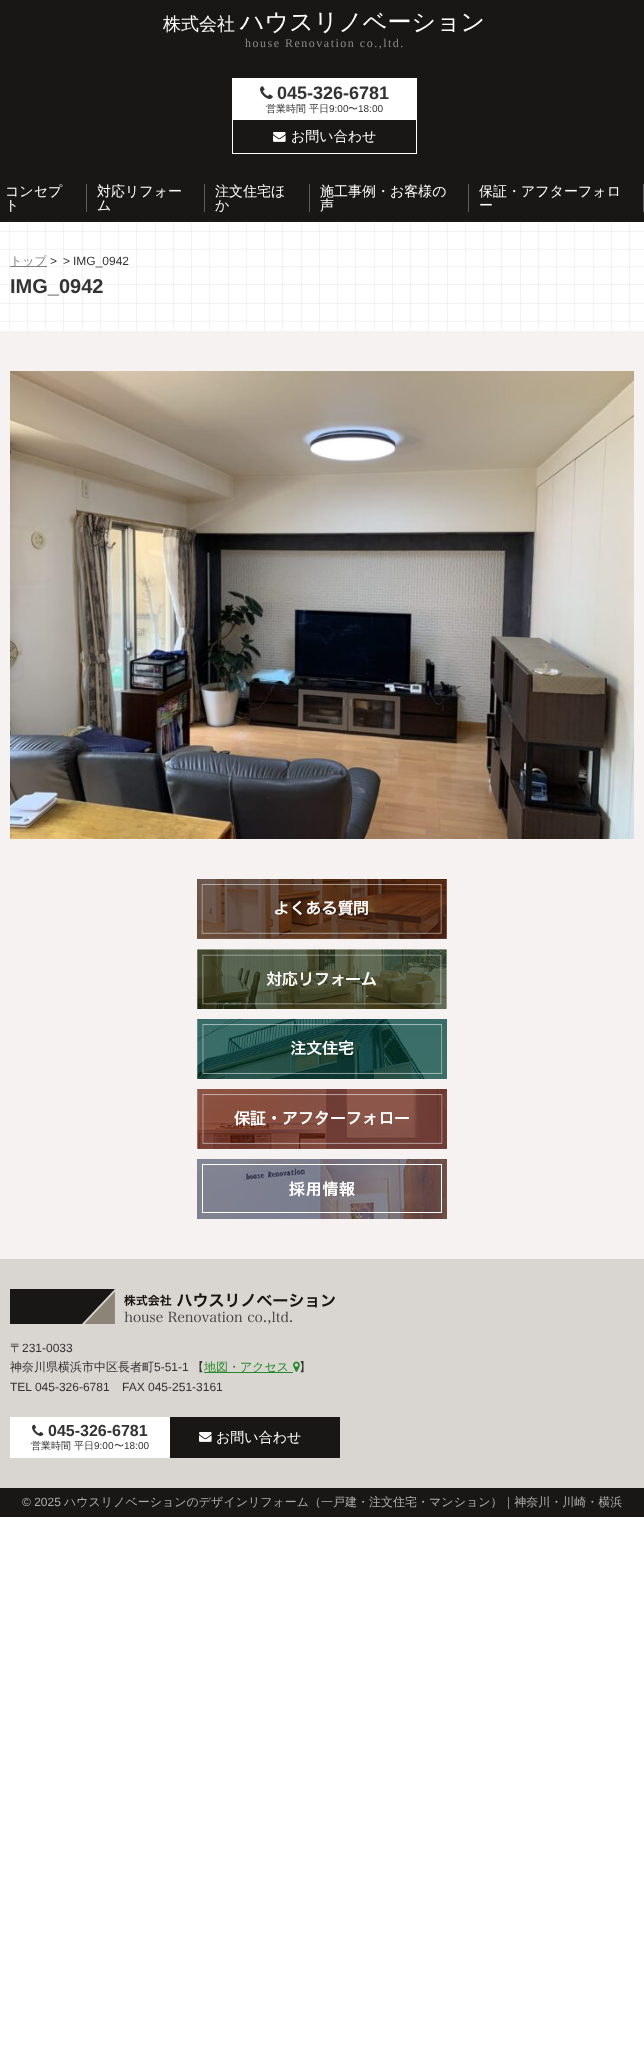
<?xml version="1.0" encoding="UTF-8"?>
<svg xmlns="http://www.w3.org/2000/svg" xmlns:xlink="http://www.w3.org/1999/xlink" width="644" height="2054">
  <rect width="100%" height="100%" fill="#ffffff" />
  <rect y="331" width="644" height="928" fill="#f5f2f1" />
  <rect width="644" height="222" fill="#191716" />
  <rect x="232" y="78" width="185" height="41" fill="#ffffff" />
  <image x="260" y="86" width="13" height="13" xlink:href="image1.png" />
  <rect x="232.5" y="119.5" width="184" height="34" fill="none" stroke="#ffffff" />
  <image x="273" y="132" width="13" height="10" xlink:href="image2.png" />
  <rect x="86" y="184" width="1" height="28" fill="#5e5e5e" />
  <rect x="204" y="184" width="1" height="28" fill="#5e5e5e" />
  <rect x="309" y="184" width="1" height="28" fill="#5e5e5e" />
  <rect x="468" y="184" width="1" height="28" fill="#5e5e5e" />
  <rect x="643" y="184" width="1" height="28" fill="#5e5e5e" />
  <image x="0" y="222" width="644" height="109" xlink:href="image3.png" />
  <rect x="10" y="266" width="37" height="1" fill="#808080" />
  <image x="10" y="371" width="624" height="468" xlink:href="image4.png" />
  <image x="197" y="879" width="250" height="60" xlink:href="image5.png" />
  <image x="197" y="949" width="250" height="60" xlink:href="image6.png" />
  <image x="197" y="1019" width="250" height="60" xlink:href="image7.png" />
  <image x="197" y="1089" width="250" height="60" xlink:href="image8.png" />
  <image x="197" y="1159" width="250" height="60" xlink:href="image9.png" />
  <rect y="1259" width="644" height="229" fill="#d9d6d1" />
  <image x="10" y="1289" width="325" height="35" xlink:href="image10.png" />
  <rect x="204" y="1372" width="89" height="1" fill="#25892b" />
  <image x="293" y="1361" width="7" height="11" xlink:href="image11.png" />
  <rect x="170" y="1417" width="170" height="41" fill="#191716" />
  <rect x="10" y="1417" width="160" height="41" fill="#ffffff" />
  <image x="32" y="1424" width="12" height="12" xlink:href="image12.png" />
  <image x="199" y="1432" width="13" height="10" xlink:href="image2.png" />
  <rect y="1488" width="644" height="29" fill="#191716" />
  <text x="163" y="30" style="font-family: WenQuanYi Zen Hei; font-size: 18px; font-weight: 500; fill: #ffffff">株式会社</text>
  <text x="240" y="30" style="font-family: WenQuanYi Zen Hei; font-size: 24px; font-weight: 500; fill: #ffffff">ハウスリノベーション</text>
  <text x="245" y="47" style="font-family: Liberation Serif; font-size: 12px; letter-spacing: 1.5px; fill: #8b8b8c">house Renovation co.,ltd.</text>
  <text x="277" y="99" style="font-family: Liberation Sans; font-size: 18px; font-weight: bold; fill: #333333">045-326-6781</text>
  <text x="266" y="112" style="font-family: WenQuanYi Zen Hei; font-size: 10px; font-weight: 500; fill: #333333">営業時間 平日</text>
  <text x="329" y="112" style="font-family: Liberation Sans; font-size: 10px; fill: #333333">9:00</text>
  <text x="348" y="112" style="font-family: WenQuanYi Zen Hei; font-size: 10px; font-weight: 500; fill: #333333">〜</text>
  <text x="358" y="112" style="font-family: Liberation Sans; font-size: 10px; fill: #333333">18:00</text>
  <text x="291" y="141" style="font-family: WenQuanYi Zen Hei; font-size: 14px; font-weight: 500; fill: #ffffff">お問い合わせ</text>
  <text x="5" y="196" style="font-family: WenQuanYi Zen Hei; font-size: 14px; font-weight: 500; fill: #ffffff">コンセプ</text>
  <text x="5" y="210" style="font-family: WenQuanYi Zen Hei; font-size: 14px; font-weight: 500; fill: #ffffff">ト</text>
  <text x="97" y="196" style="font-family: WenQuanYi Zen Hei; font-size: 14px; font-weight: 500; fill: #ffffff">対応リフォー</text>
  <text x="97" y="210" style="font-family: WenQuanYi Zen Hei; font-size: 14px; font-weight: 500; fill: #ffffff">ム</text>
  <text x="215" y="196" style="font-family: WenQuanYi Zen Hei; font-size: 14px; font-weight: 500; fill: #ffffff">注文住宅ほ</text>
  <text x="215" y="210" style="font-family: WenQuanYi Zen Hei; font-size: 14px; font-weight: 500; fill: #ffffff">か</text>
  <text x="320" y="196" style="font-family: WenQuanYi Zen Hei; font-size: 14px; font-weight: 500; fill: #ffffff">施工事例・お客様の</text>
  <text x="320" y="210" style="font-family: WenQuanYi Zen Hei; font-size: 14px; font-weight: 500; fill: #ffffff">声</text>
  <text x="479" y="196" style="font-family: WenQuanYi Zen Hei; font-size: 14px; font-weight: 500; fill: #ffffff">保証・アフターフォロ</text>
  <text x="479" y="210" style="font-family: WenQuanYi Zen Hei; font-size: 14px; font-weight: 500; fill: #ffffff">ー</text>
  <text x="10" y="265" style="font-family: WenQuanYi Zen Hei; font-size: 12px; font-weight: 500; fill: #808080">トップ</text>
  <text x="50" y="265" style="font-family: Liberation Sans; font-size: 12px; fill: #333333">&gt;</text>
  <text x="63" y="265" style="font-family: Liberation Sans; font-size: 12px; fill: #333333">&gt;</text>
  <text x="73" y="265" style="font-family: Liberation Sans; font-size: 12px; fill: #333333">IMG_0942</text>
  <text x="10" y="293" style="font-family: Liberation Sans; font-size: 20px; font-weight: bold; fill: #333333">IMG_0942</text>
  <text x="10" y="1352" style="font-family: WenQuanYi Zen Hei; font-size: 12px; font-weight: 500; fill: #333333">〒</text>
  <text x="22" y="1352" style="font-family: Liberation Sans; font-size: 12px; fill: #333333">231-0033</text>
  <text x="10" y="1371" style="font-family: WenQuanYi Zen Hei; font-size: 12px; font-weight: 500; fill: #333333">神奈川県横浜市中区長者町</text>
  <text x="154" y="1371" style="font-family: Liberation Sans; font-size: 12px; fill: #333333">5-51-1</text>
  <text x="192" y="1371" style="font-family: WenQuanYi Zen Hei; font-size: 12px; font-weight: 500; fill: #333333">【</text>
  <text x="204" y="1371" style="font-family: WenQuanYi Zen Hei; font-size: 12px; font-weight: 500; fill: #25892b">地図・アクセス</text>
  <text x="299" y="1371" style="font-family: WenQuanYi Zen Hei; font-size: 12px; font-weight: 500; fill: #333333">】</text>
  <text x="10" y="1391" style="font-family: Liberation Sans; font-size: 12px; fill: #333333">TEL 045-326-6781</text>
  <text x="122" y="1391" style="font-family: Liberation Sans; font-size: 12px; fill: #333333">FAX 045-251-3161</text>
  <text x="48" y="1436" style="font-family: Liberation Sans; font-size: 16px; font-weight: bold; fill: #333333">045-326-6781</text>
  <text x="31" y="1449" style="font-family: WenQuanYi Zen Hei; font-size: 10px; font-weight: 500; fill: #333333">営業時間 平日</text>
  <text x="94" y="1449" style="font-family: Liberation Sans; font-size: 10px; fill: #333333">9:00</text>
  <text x="114" y="1449" style="font-family: WenQuanYi Zen Hei; font-size: 10px; font-weight: 500; fill: #333333">〜</text>
  <text x="124" y="1449" style="font-family: Liberation Sans; font-size: 10px; fill: #333333">18:00</text>
  <text x="216" y="1442" style="font-family: WenQuanYi Zen Hei; font-size: 14px; font-weight: 500; fill: #ffffff">お問い合わせ</text>
  <text x="22" y="1506" style="font-family: Liberation Sans; font-size: 12px; fill: #adadad">© 2025</text>
  <text x="64" y="1506" style="font-family: WenQuanYi Zen Hei; font-size: 12px; font-weight: 500; fill: #adadad">ハウスリノベーションのデザインリフォーム（一戸建・注文住宅・マンション）｜神奈川・川崎・横浜</text>
</svg>
